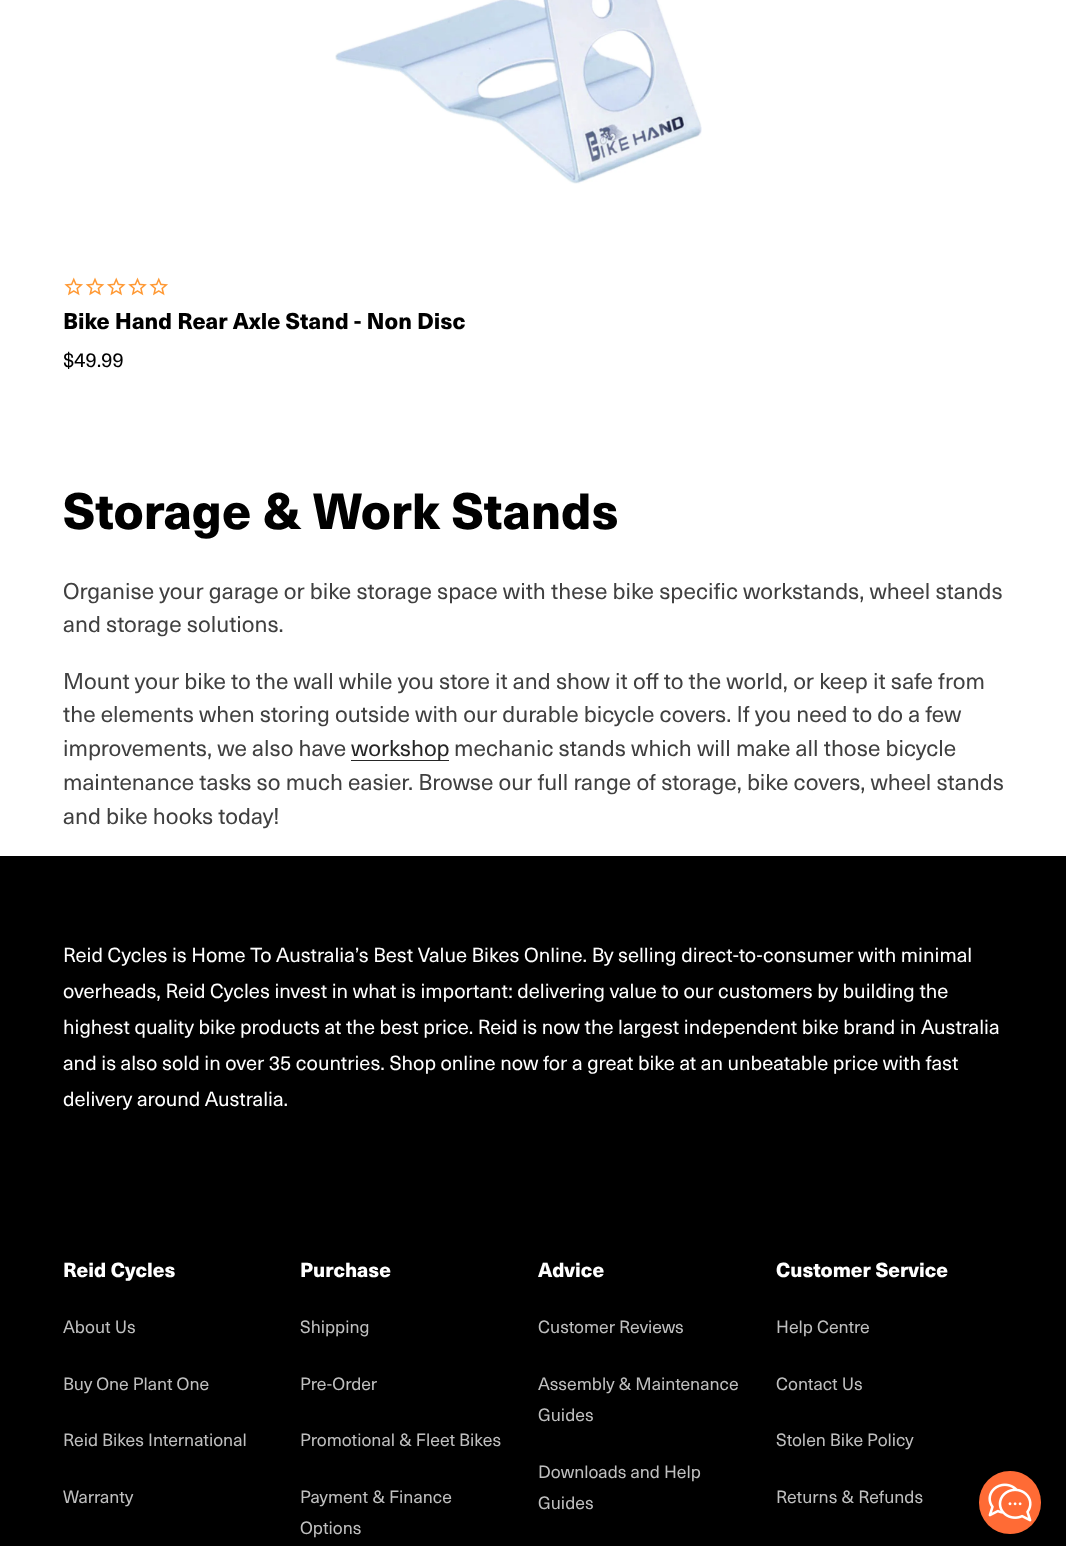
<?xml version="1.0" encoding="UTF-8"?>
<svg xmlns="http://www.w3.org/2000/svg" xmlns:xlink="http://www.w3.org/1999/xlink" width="1066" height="1546">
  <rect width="100%" height="100%" fill="#ffffff" />
  <image x="335" y="0" width="367" height="184" xlink:href="image1.png" />
  <image x="64" y="277" width="19" height="19" xlink:href="image2.png" />
  <image x="85" y="277" width="20" height="19" xlink:href="image3.png" />
  <image x="107" y="277" width="19" height="19" xlink:href="image4.png" />
  <image x="128" y="277" width="19" height="19" xlink:href="image5.png" />
  <image x="149" y="277" width="19" height="19" xlink:href="image2.png" />
  <rect x="351" y="760" width="98" height="1" fill="#262626" />
  <rect y="856" width="1066" height="690" fill="#000000" />
  <rect x="979" y="1471" width="62" height="63" rx="31" fill="#ff6b35" />
  <image x="988" y="1483" width="44" height="39" xlink:href="image6.png" />
  <text x="63" y="329" style="font-family: 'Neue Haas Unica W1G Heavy'; font-size: 22.5px; font-weight: 900; fill: #000000">Bike Hand Rear Axle Stand - Non Disc</text>
  <text x="63" y="367" style="font-family: 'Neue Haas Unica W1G'; font-size: 20px; fill: #000000">$49.99</text>
  <text x="63" y="529" style="font-family: 'Neue Haas Unica W1G Heavy'; font-size: 50px; font-weight: 900; fill: #000000">Storage &amp; Work Stands</text>
  <text x="63" y="599" style="font-family: 'Neue Haas Unica W1G'; font-size: 22.5px; fill: #404040">Organise your garage or bike storage space with these bike specific workstands, wheel stands</text>
  <text x="63" y="632" style="font-family: 'Neue Haas Unica W1G'; font-size: 22.5px; fill: #404040">and storage solutions.</text>
  <text x="63" y="689" style="font-family: 'Neue Haas Unica W1G'; font-size: 22.5px; fill: #404040">Mount your bike to the wall while you store it and show it off to the world, or keep it safe from</text>
  <text x="63" y="722" style="font-family: 'Neue Haas Unica W1G'; font-size: 22.5px; fill: #404040">the elements when storing outside with our durable bicycle covers. If you need to do a few</text>
  <text x="63" y="756" style="font-family: 'Neue Haas Unica W1G'; font-size: 22.5px; fill: #404040">improvements, we also have</text>
  <text x="351" y="756" style="font-family: 'Neue Haas Unica W1G'; font-size: 22.5px; fill: #262626">workshop</text>
  <text x="454" y="756" style="font-family: 'Neue Haas Unica W1G'; font-size: 22.5px; fill: #404040">mechanic stands which will make all those bicycle</text>
  <text x="63" y="790" style="font-family: 'Neue Haas Unica W1G'; font-size: 22.5px; fill: #404040">maintenance tasks so much easier. Browse our full range of storage, bike covers, wheel stands</text>
  <text x="63" y="824" style="font-family: 'Neue Haas Unica W1G'; font-size: 22.5px; fill: #404040">and bike hooks today!</text>
  <text x="63" y="962" style="font-family: 'Neue Haas Unica W1G'; font-size: 20px; fill: #ffffff">Reid Cycles is Home To Australia’s Best Value Bikes Online. By selling direct-to-consumer with minimal</text>
  <text x="63" y="998" style="font-family: 'Neue Haas Unica W1G'; font-size: 20px; fill: #ffffff">overheads, Reid Cycles invest in what is important: delivering value to our customers by building the</text>
  <text x="63" y="1034" style="font-family: 'Neue Haas Unica W1G'; font-size: 20px; fill: #ffffff">highest quality bike products at the best price. Reid is now the largest independent bike brand in Australia</text>
  <text x="63" y="1070" style="font-family: 'Neue Haas Unica W1G'; font-size: 20px; fill: #ffffff">and is also sold in over 35 countries. Shop online now for a great bike at an unbeatable price with fast</text>
  <text x="63" y="1106" style="font-family: 'Neue Haas Unica W1G'; font-size: 20px; fill: #ffffff">delivery around Australia.</text>
  <text x="63" y="1277" style="font-family: 'Neue Haas Unica W1G Heavy'; font-size: 20px; font-weight: 900; fill: #ffffff">Reid Cycles</text>
  <text x="63" y="1333" style="font-family: 'Neue Haas Unica W1G'; font-size: 17.5px; fill: #bfbfbf">About Us</text>
  <text x="63" y="1390" style="font-family: 'Neue Haas Unica W1G'; font-size: 17.5px; fill: #bfbfbf">Buy One Plant One</text>
  <text x="63" y="1446" style="font-family: 'Neue Haas Unica W1G'; font-size: 17.5px; fill: #bfbfbf">Reid Bikes International</text>
  <text x="63" y="1503" style="font-family: 'Neue Haas Unica W1G'; font-size: 17.5px; fill: #bfbfbf">Warranty</text>
  <text x="300" y="1277" style="font-family: 'Neue Haas Unica W1G Heavy'; font-size: 20px; font-weight: 900; fill: #ffffff">Purchase</text>
  <text x="300" y="1333" style="font-family: 'Neue Haas Unica W1G'; font-size: 17.5px; fill: #bfbfbf">Shipping</text>
  <text x="300" y="1390" style="font-family: 'Neue Haas Unica W1G'; font-size: 17.5px; fill: #bfbfbf">Pre-Order</text>
  <text x="300" y="1446" style="font-family: 'Neue Haas Unica W1G'; font-size: 17.5px; fill: #bfbfbf">Promotional &amp; Fleet Bikes</text>
  <text x="300" y="1503" style="font-family: 'Neue Haas Unica W1G'; font-size: 17.5px; fill: #bfbfbf">Payment &amp; Finance</text>
  <text x="300" y="1534" style="font-family: 'Neue Haas Unica W1G'; font-size: 17.5px; fill: #bfbfbf">Options</text>
  <text x="538" y="1277" style="font-family: 'Neue Haas Unica W1G Heavy'; font-size: 20px; font-weight: 900; fill: #ffffff">Advice</text>
  <text x="538" y="1333" style="font-family: 'Neue Haas Unica W1G'; font-size: 17.5px; fill: #bfbfbf">Customer Reviews</text>
  <text x="538" y="1390" style="font-family: 'Neue Haas Unica W1G'; font-size: 17.5px; fill: #bfbfbf">Assembly &amp; Maintenance</text>
  <text x="538" y="1421" style="font-family: 'Neue Haas Unica W1G'; font-size: 17.5px; fill: #bfbfbf">Guides</text>
  <text x="538" y="1478" style="font-family: 'Neue Haas Unica W1G'; font-size: 17.5px; fill: #bfbfbf">Downloads and Help</text>
  <text x="538" y="1509" style="font-family: 'Neue Haas Unica W1G'; font-size: 17.5px; fill: #bfbfbf">Guides</text>
  <text x="776" y="1277" style="font-family: 'Neue Haas Unica W1G Heavy'; font-size: 20px; font-weight: 900; fill: #ffffff">Customer Service</text>
  <text x="776" y="1333" style="font-family: 'Neue Haas Unica W1G'; font-size: 17.5px; fill: #bfbfbf">Help Centre</text>
  <text x="776" y="1390" style="font-family: 'Neue Haas Unica W1G'; font-size: 17.5px; fill: #bfbfbf">Contact Us</text>
  <text x="776" y="1446" style="font-family: 'Neue Haas Unica W1G'; font-size: 17.5px; fill: #bfbfbf">Stolen Bike Policy</text>
  <text x="776" y="1503" style="font-family: 'Neue Haas Unica W1G'; font-size: 17.5px; fill: #bfbfbf">Returns &amp; Refunds</text>
</svg>
